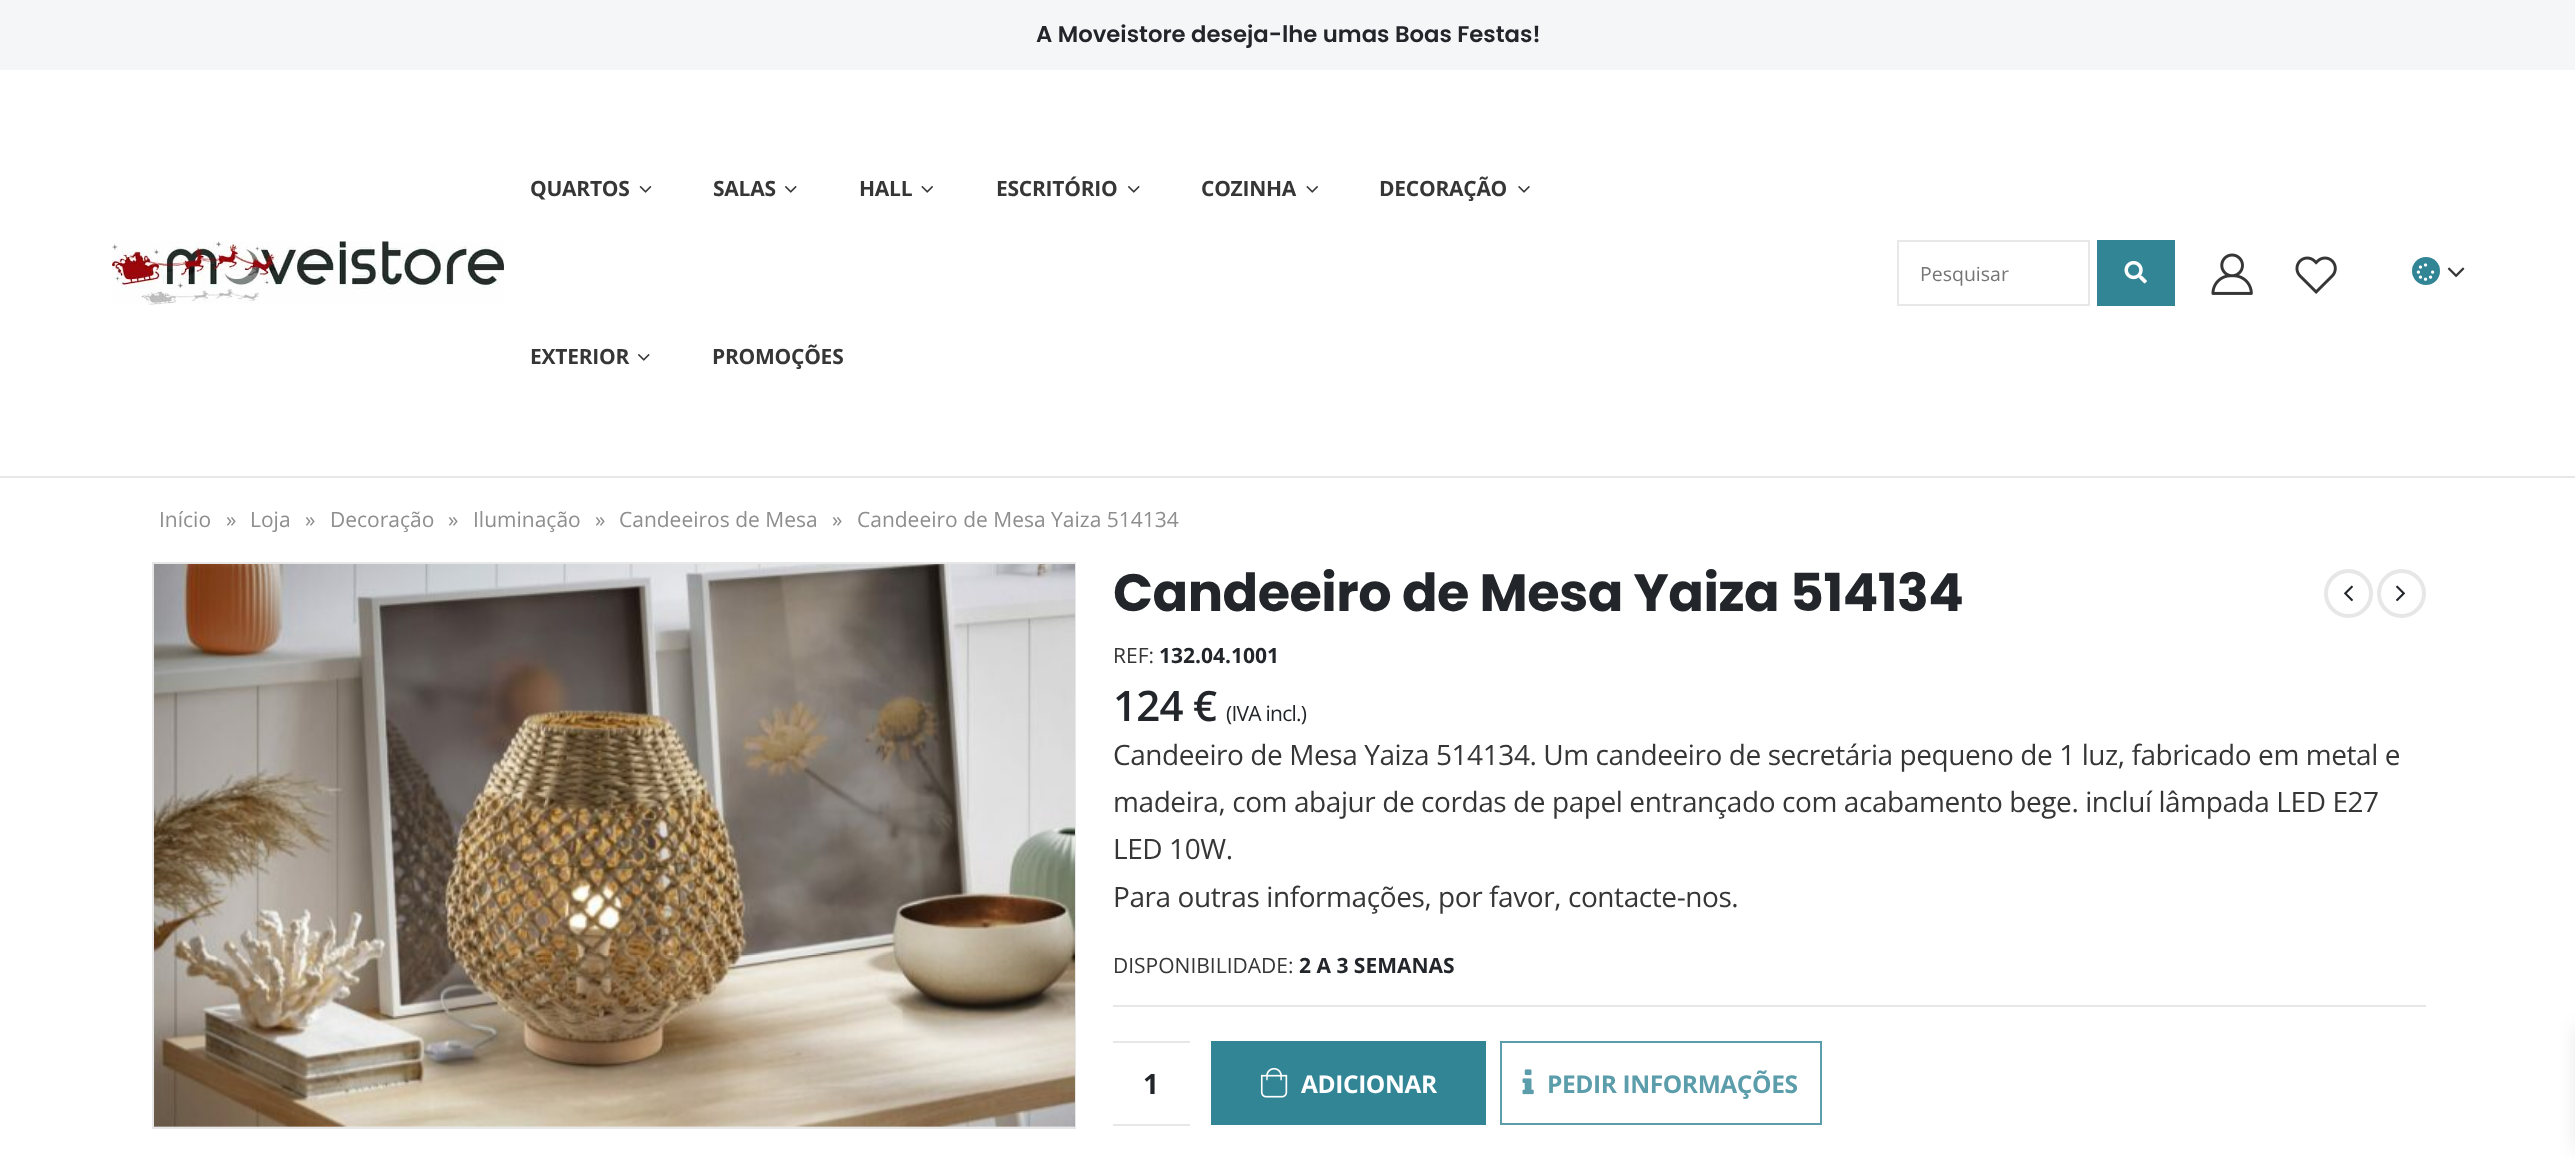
<?xml version="1.0" encoding="UTF-8"?>
<svg xmlns="http://www.w3.org/2000/svg" xmlns:xlink="http://www.w3.org/1999/xlink" width="2575" height="1158">
  <rect width="100%" height="100%" fill="#ffffff" />
  <rect y="476" width="2575" height="2" fill="#e7e7e7" />
  <rect width="2575" height="70" fill="#f5f6f8" />
  <image x="112" y="241" width="392" height="64" xlink:href="image1.png" />
  <image x="639" y="186" width="13" height="7" xlink:href="image2.png" />
  <image x="785" y="186" width="12" height="7" xlink:href="image3.png" />
  <image x="921" y="186" width="12" height="7" xlink:href="image4.png" />
  <image x="1128" y="186" width="12" height="7" xlink:href="image3.png" />
  <image x="1306" y="186" width="12" height="7" xlink:href="image4.png" />
  <image x="1518" y="186" width="12" height="7" xlink:href="image5.png" />
  <image x="638" y="354" width="12" height="7" xlink:href="image3.png" />
  <rect x="1898" y="241" width="191" height="64" fill="none" stroke="#e8e8e8" stroke-width="2" />
  <rect x="2097" y="240" width="78" height="66" fill="#328595" />
  <image x="2124" y="261" width="23" height="23" xlink:href="image6.png" />
  <image x="2211" y="253" width="42" height="42" xlink:href="image7.png" />
  <image x="2295" y="256" width="42" height="38" xlink:href="image8.png" />
  <circle cx="2426" cy="271" r="14" fill="#328595" />
  <image x="2416" y="263" width="19" height="18" xlink:href="image9.png" />
  <image x="2447" y="267" width="18" height="11" xlink:href="image10.png" />
  <rect x="153" y="563" width="922" height="565" fill="none" stroke="#e7e7e7" stroke-width="2" />
  <image x="154" y="564" width="921" height="563" xlink:href="image11.png" />
  <circle cx="2348.5" cy="593.5" r="22.5" fill="none" stroke="#e7e7e7" stroke-width="4" />
  <image x="2344" y="585" width="9" height="17" xlink:href="image12.png" />
  <circle cx="2401.5" cy="593.5" r="22.5" fill="none" stroke="#e7e7e7" stroke-width="4" />
  <image x="2396" y="585" width="9" height="17" xlink:href="image13.png" />
  <rect x="1113" y="1005" width="1313" height="2" fill="#e7e7e7" />
  <rect x="1113" y="1041" width="77" height="2" fill="#e7e7e7" />
  <rect x="1113" y="1124" width="77" height="2" fill="#e7e7e7" />
  <rect x="1211" y="1041" width="275" height="84" fill="#328595" />
  <image x="1260" y="1067" width="28" height="31" xlink:href="image14.png" />
  <rect x="1501" y="1042" width="320" height="82" fill="none" stroke="#5b9daa" stroke-width="2" />
  <image x="1522" y="1069" width="12" height="26" xlink:href="image15.png" />
  <rect x="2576" y="1027" width="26" height="123" fill="#000000" fill-opacity="0.1" filter="blur(9px)" />
  <text x="1036" y="42" style="font-family: Poppins; font-size: 22.75px; font-weight: 600; fill: #222529">A Moveistore deseja-lhe umas Boas Festas!</text>
  <text x="530" y="196" style="font-family: Open Sans; font-size: 21px; font-weight: bold; letter-spacing: -0.25px; fill: #363636">QUARTOS</text>
  <text x="713" y="196" style="font-family: Open Sans; font-size: 21px; font-weight: bold; letter-spacing: -0.25px; fill: #363636">SALAS</text>
  <text x="859" y="196" style="font-family: Open Sans; font-size: 21px; font-weight: bold; letter-spacing: -0.25px; fill: #363636">HALL</text>
  <text x="996" y="196" style="font-family: Open Sans; font-size: 21px; font-weight: bold; letter-spacing: -0.25px; fill: #363636">ESCRITÓRIO</text>
  <text x="1201" y="196" style="font-family: Open Sans; font-size: 21px; font-weight: bold; letter-spacing: -0.25px; fill: #363636">COZINHA</text>
  <text x="1379" y="196" style="font-family: Open Sans; font-size: 21px; font-weight: bold; letter-spacing: -0.25px; fill: #363636">DECORAÇÃO</text>
  <text x="530" y="364" style="font-family: Open Sans; font-size: 21px; font-weight: bold; letter-spacing: -0.25px; fill: #363636">EXTERIOR</text>
  <text x="712" y="364" style="font-family: Open Sans; font-size: 21px; font-weight: bold; letter-spacing: -0.25px; fill: #363636">PROMOÇÕES</text>
  <text x="1920" y="281" style="font-family: Open Sans; font-size: 19.5px; fill: #757575">Pesquisar</text>
  <text x="159" y="527" style="font-family: Open Sans; font-size: 21px; fill: #8e8e8e">Início</text>
  <text x="226" y="527" style="font-family: Open Sans; font-size: 21px; fill: #8e8e8e">»</text>
  <text x="250" y="527" style="font-family: Open Sans; font-size: 21px; fill: #8e8e8e">Loja</text>
  <text x="305" y="527" style="font-family: Open Sans; font-size: 21px; fill: #8e8e8e">»</text>
  <text x="330" y="527" style="font-family: Open Sans; font-size: 21px; fill: #8e8e8e">Decoração</text>
  <text x="448" y="527" style="font-family: Open Sans; font-size: 21px; fill: #8e8e8e">»</text>
  <text x="473" y="527" style="font-family: Open Sans; font-size: 21px; fill: #8e8e8e">Iluminação</text>
  <text x="595" y="527" style="font-family: Open Sans; font-size: 21px; fill: #8e8e8e">»</text>
  <text x="619" y="527" style="font-family: Open Sans; font-size: 21px; fill: #8e8e8e">Candeeiros de Mesa</text>
  <text x="832" y="527" style="font-family: Open Sans; font-size: 21px; fill: #8e8e8e">»</text>
  <text x="857" y="527" style="font-family: Open Sans; font-size: 21px; fill: #8e8e8e">Candeeiro de Mesa Yaiza 514134</text>
  <text x="1113" y="611" style="font-family: Poppins; font-size: 52.5px; font-weight: bold; letter-spacing: -0.5px; fill: #222529">Candeeiro de Mesa Yaiza 514134</text>
  <text x="1113" y="663" style="font-family: Open Sans; font-size: 21px; fill: #363636">REF:</text>
  <text x="1159" y="663" style="font-family: Open Sans; font-size: 21px; font-weight: bold; fill: #222529">132.04.1001</text>
  <text x="1113" y="721" style="font-family: Open Sans; font-size: 42px; font-weight: 600; letter-spacing: -0.75px; fill: #222529">124 €</text>
  <text x="1226" y="721" style="font-family: Open Sans; font-size: 21px; letter-spacing: -0.75px; fill: #222529">(IVA incl.)</text>
  <text x="1113" y="765" style="font-family: Open Sans; font-size: 28px; letter-spacing: -0.42px; fill: #363636">Candeeiro de Mesa Yaiza 514134. Um candeeiro de secretária pequeno de 1 luz, fabricado em metal e</text>
  <text x="1113" y="812" style="font-family: Open Sans; font-size: 28px; letter-spacing: -0.42px; fill: #363636">madeira, com abajur de cordas de papel entrançado com acabamento bege. incluí lâmpada LED E27</text>
  <text x="1113" y="859" style="font-family: Open Sans; font-size: 28px; letter-spacing: -0.42px; fill: #363636">LED 10W.</text>
  <text x="1113" y="907" style="font-family: Open Sans; font-size: 28px; letter-spacing: -0.42px; fill: #363636">Para outras informações, por favor, contacte-nos.</text>
  <text x="1113" y="973" style="font-family: Open Sans; font-size: 21px; fill: #363636">DISPONIBILIDADE:</text>
  <text x="1299" y="973" style="font-family: Open Sans; font-size: 21px; font-weight: bold; fill: #222529">2 A 3 SEMANAS</text>
  <text x="1143" y="1094" style="font-family: Open Sans; font-size: 28px; font-weight: bold; fill: #222529">1</text>
  <text x="1301" y="1093" style="font-family: Open Sans; font-size: 24.5px; font-weight: bold; letter-spacing: -0.4px; fill: #ffffff">ADICIONAR</text>
  <text x="1547" y="1093" style="font-family: Open Sans; font-size: 24.5px; font-weight: bold; letter-spacing: -0.4px; fill: #5b9daa">PEDIR INFORMAÇÕES</text>
</svg>
